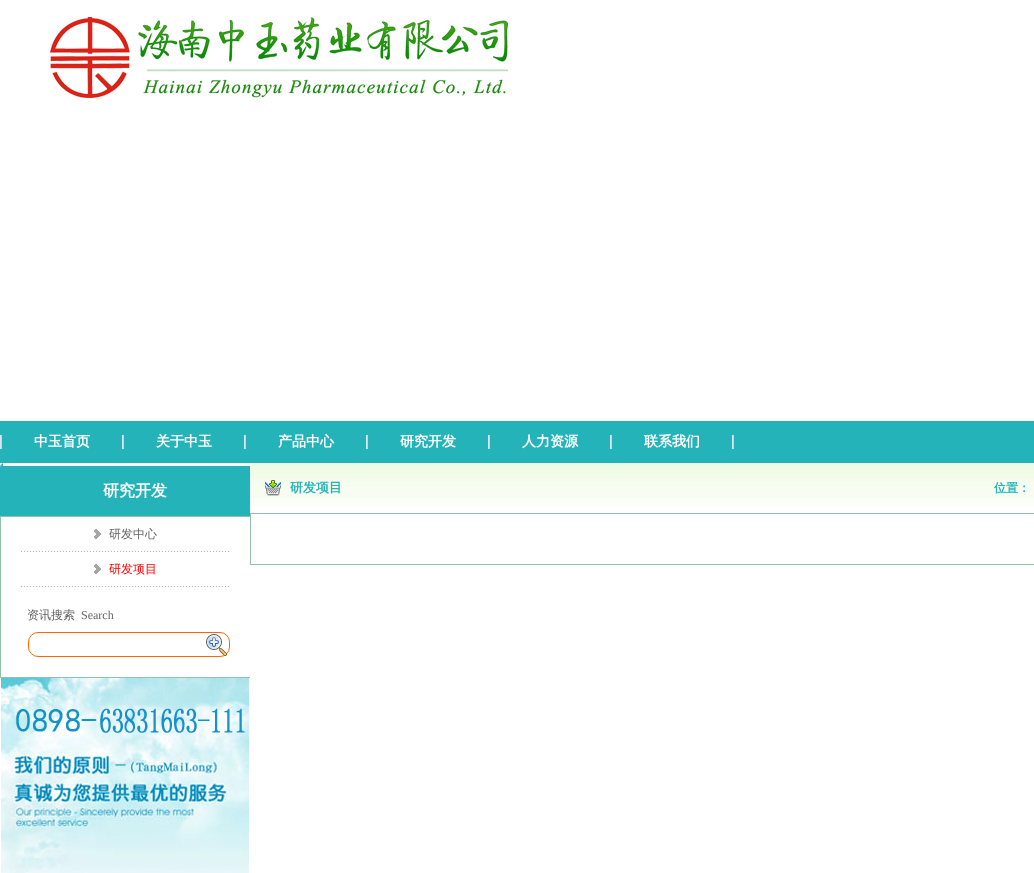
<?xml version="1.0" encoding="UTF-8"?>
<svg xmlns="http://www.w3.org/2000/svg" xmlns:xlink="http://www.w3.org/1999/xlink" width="1034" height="873">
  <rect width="100%" height="100%" fill="#ffffff" />
  <image x="50" y="17" width="458" height="81" xlink:href="image1.png" />
  <rect y="421" width="1034" height="42" fill="#24b3b9" />
  <image x="0" y="435" width="2" height="14" xlink:href="image2.png" />
  <image x="122" y="435" width="2" height="14" xlink:href="image2.png" />
  <image x="244" y="435" width="2" height="14" xlink:href="image2.png" />
  <image x="366" y="435" width="2" height="14" xlink:href="image2.png" />
  <image x="488" y="435" width="2" height="14" xlink:href="image2.png" />
  <image x="610" y="435" width="2" height="14" xlink:href="image2.png" />
  <image x="732" y="435" width="2" height="14" xlink:href="image2.png" />
  <path d="M 5 463 h 245 v 53 h -250 v -48 c 0 -3 2 -5 5 -5 z" fill="#24b3b9" />
  <rect x="3" y="463" width="247" height="3" fill="#ffffff" />
  <rect y="516" width="250" height="1" fill="#91c2ac" />
  <rect y="677" width="250" height="1" fill="#91c2ac" />
  <rect y="516" width="1" height="162" fill="#91c2ac" />
  <image x="21" y="551" width="209" height="1" xlink:href="image3.png" />
  <image x="94" y="529" width="7" height="10" xlink:href="image4.png" />
  <image x="21" y="586" width="209" height="1" xlink:href="image3.png" />
  <image x="94" y="564" width="7" height="10" xlink:href="image4.png" />
  <rect x="28.5" y="632.5" width="201" height="24" rx="9.5" fill="none" stroke="#ff6600" />
  <image x="206" y="634" width="21" height="22" xlink:href="image5.png" />
  <image x="1" y="678" width="248" height="195" xlink:href="image6.png" />
  <image x="250" y="464" width="784" height="43" xlink:href="image7.png" />
  <image x="265" y="480" width="16" height="16" xlink:href="image8.png" />
  <rect x="250.5" y="513.5" width="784" height="51" fill="none" stroke="#91c2ac" />
  <text x="34" y="446" style="font-family: WenQuanYi Zen Hei; font-size: 14px; font-weight: bold; fill: #ffffff">中玉首页</text>
  <text x="156" y="446" style="font-family: WenQuanYi Zen Hei; font-size: 14px; font-weight: bold; fill: #ffffff">关于中玉</text>
  <text x="278" y="446" style="font-family: WenQuanYi Zen Hei; font-size: 14px; font-weight: bold; fill: #ffffff">产品中心</text>
  <text x="400" y="446" style="font-family: WenQuanYi Zen Hei; font-size: 14px; font-weight: bold; fill: #ffffff">研究开发</text>
  <text x="522" y="446" style="font-family: WenQuanYi Zen Hei; font-size: 14px; font-weight: bold; fill: #ffffff">人力资源</text>
  <text x="644" y="446" style="font-family: WenQuanYi Zen Hei; font-size: 14px; font-weight: bold; fill: #ffffff">联系我们</text>
  <text x="103" y="496" style="font-family: WenQuanYi Zen Hei; font-size: 16px; font-weight: bold; fill: #ffffff">研究开发</text>
  <text x="109" y="538" style="font-family: WenQuanYi Zen Hei; font-size: 12px; font-weight: 500; fill: #666666">研发中心</text>
  <text x="109" y="573" style="font-family: WenQuanYi Zen Hei; font-size: 12px; font-weight: 500; fill: #ff0000">研发项目</text>
  <text x="27" y="619" style="font-family: WenQuanYi Zen Hei; font-size: 12px; font-weight: 500; fill: #666666">资讯搜索</text>
  <text x="81" y="619" style="font-family: Liberation Serif; font-size: 12px; fill: #666666">Search</text>
  <text x="290" y="492" style="font-family: WenQuanYi Zen Hei; font-size: 13px; font-weight: bold; fill: #24b3b9">研发项目</text>
  <text x="994" y="492" style="font-family: WenQuanYi Zen Hei; font-size: 12px; font-weight: bold; fill: #24b3b9">位置：</text>
</svg>
